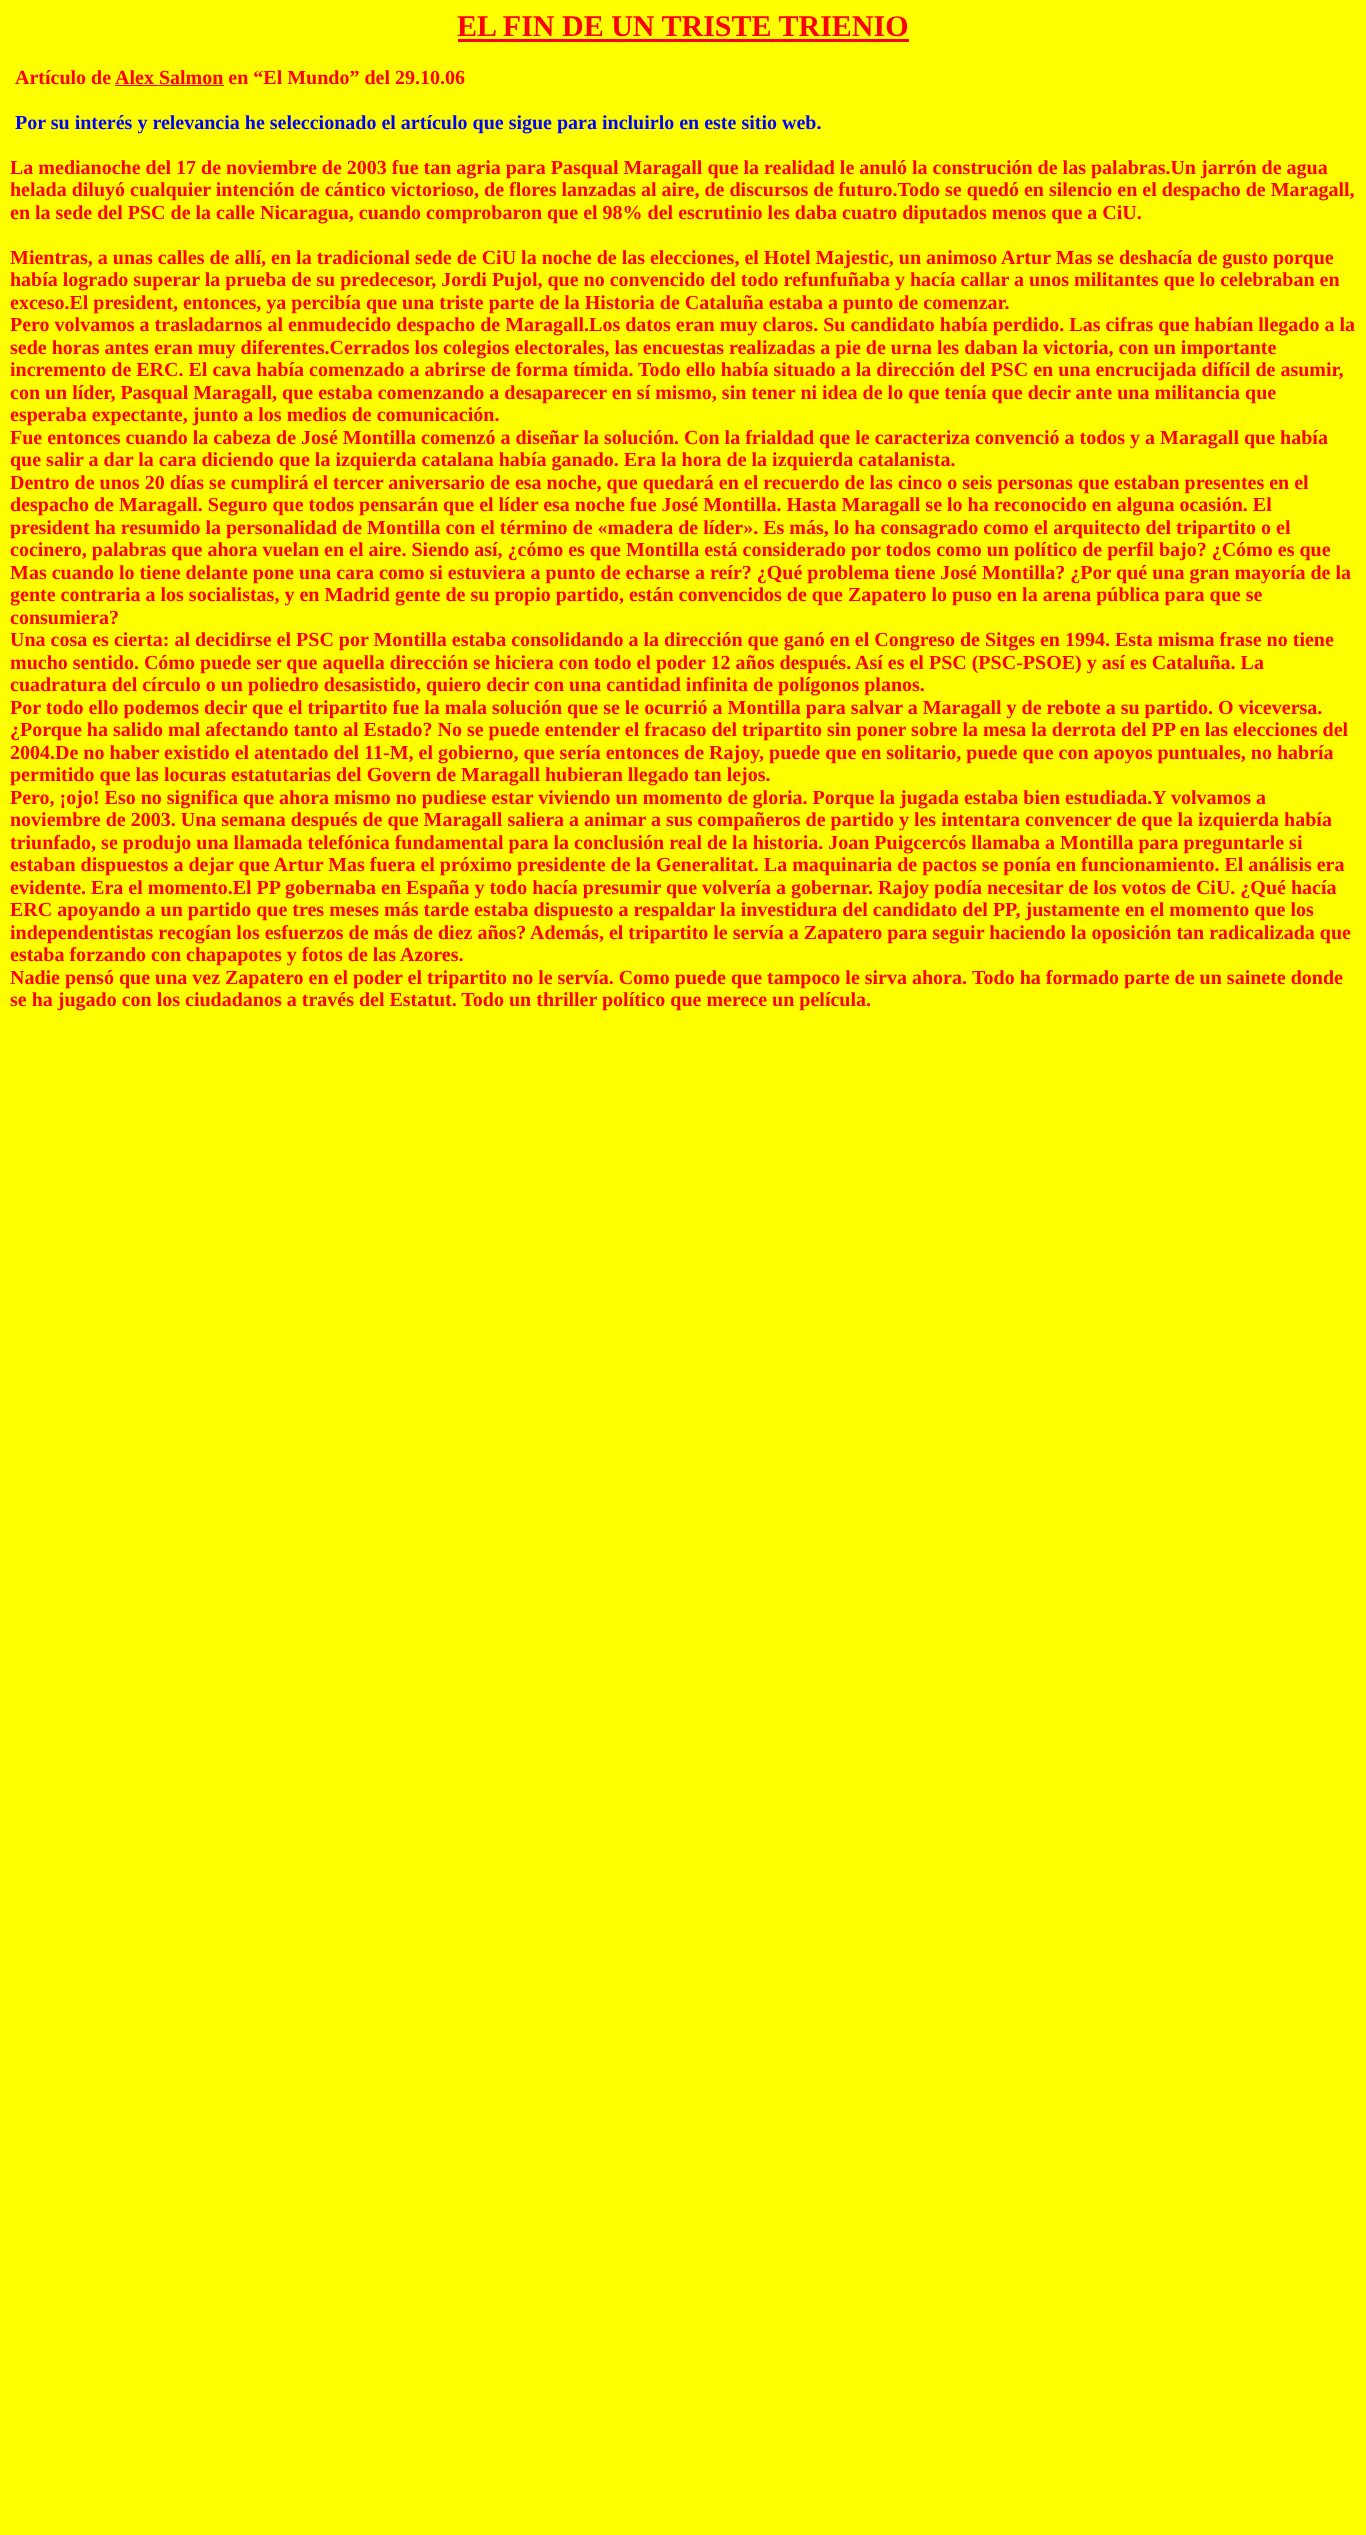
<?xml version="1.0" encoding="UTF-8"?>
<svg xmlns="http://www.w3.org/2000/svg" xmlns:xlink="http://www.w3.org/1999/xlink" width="1366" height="2535">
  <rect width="100%" height="100%" fill="#ffff00" />
  <rect x="458" y="39" width="451" height="3" fill="#ff0000" />
  <rect x="115" y="85" width="109" height="1" fill="#ff0000" />
  <text x="457" y="36" style="font-family: Liberation Serif; font-size: 30px; font-weight: bold; fill: #ff0000">EL FIN DE UN TRISTE TRIENIO</text>
  <text x="15" y="84" style="font-family: Liberation Serif; font-size: 20px; font-weight: bold; fill: #ff0000">Artículo de</text>
  <text x="115" y="84" style="font-family: Liberation Serif; font-size: 20px; font-weight: bold; fill: #ff0000">Alex Salmon en “El Mundo” del 29.10.06</text>
  <text x="15" y="129" style="font-family: Liberation Serif; font-size: 20px; font-weight: bold; fill: #0000ff">Por su interés y relevancia he seleccionado el artículo que sigue para incluirlo en este sitio web.</text>
  <text x="10" y="174" style="font-family: Liberation Serif; font-size: 20px; font-weight: bold; fill: #ff0000">La medianoche del 17 de noviembre de 2003 fue tan agria para Pasqual Maragall que la realidad le anuló la construción de las palabras.Un jarrón de agua</text>
  <text x="10" y="196" style="font-family: Liberation Serif; font-size: 20px; font-weight: bold; fill: #ff0000">helada diluyó cualquier intención de cántico victorioso, de flores lanzadas al aire, de discursos de futuro.Todo se quedó en silencio en el despacho de Maragall,</text>
  <text x="10" y="219" style="font-family: Liberation Serif; font-size: 20px; font-weight: bold; fill: #ff0000">en la sede del PSC de la calle Nicaragua, cuando comprobaron que el 98% del escrutinio les daba cuatro diputados menos que a CiU.</text>
  <text x="10" y="264" style="font-family: Liberation Serif; font-size: 20px; font-weight: bold; fill: #ff0000">Mientras, a unas calles de allí, en la tradicional sede de CiU la noche de las elecciones, el Hotel Majestic, un animoso Artur Mas se deshacía de gusto porque</text>
  <text x="10" y="286" style="font-family: Liberation Serif; font-size: 20px; font-weight: bold; fill: #ff0000">había logrado superar la prueba de su predecesor, Jordi Pujol, que no convencido del todo refunfuñaba y hacía callar a unos militantes que lo celebraban en</text>
  <text x="10" y="309" style="font-family: Liberation Serif; font-size: 20px; font-weight: bold; fill: #ff0000">exceso.El president, entonces, ya percibía que una triste parte de la Historia de Cataluña estaba a punto de comenzar.</text>
  <text x="10" y="331" style="font-family: Liberation Serif; font-size: 20px; font-weight: bold; fill: #ff0000">Pero volvamos a trasladarnos al enmudecido despacho de Maragall.Los datos eran muy claros. Su candidato había perdido. Las cifras que habían llegado a la</text>
  <text x="10" y="354" style="font-family: Liberation Serif; font-size: 20px; font-weight: bold; fill: #ff0000">sede horas antes eran muy diferentes.Cerrados los colegios electorales, las encuestas realizadas a pie de urna les daban la victoria, con un importante</text>
  <text x="10" y="376" style="font-family: Liberation Serif; font-size: 20px; font-weight: bold; fill: #ff0000">incremento de ERC. El cava había comenzado a abrirse de forma tímida. Todo ello había situado a la dirección del PSC en una encrucijada difícil de asumir,</text>
  <text x="10" y="399" style="font-family: Liberation Serif; font-size: 20px; font-weight: bold; fill: #ff0000">con un líder, Pasqual Maragall, que estaba comenzando a desaparecer en sí mismo, sin tener ni idea de lo que tenía que decir ante una militancia que</text>
  <text x="10" y="421" style="font-family: Liberation Serif; font-size: 20px; font-weight: bold; fill: #ff0000">esperaba expectante, junto a los medios de comunicación.</text>
  <text x="10" y="444" style="font-family: Liberation Serif; font-size: 20px; font-weight: bold; fill: #ff0000">Fue entonces cuando la cabeza de José Montilla comenzó a diseñar la solución. Con la frialdad que le caracteriza convenció a todos y a Maragall que había</text>
  <text x="10" y="466" style="font-family: Liberation Serif; font-size: 20px; font-weight: bold; fill: #ff0000">que salir a dar la cara diciendo que la izquierda catalana había ganado. Era la hora de la izquierda catalanista.</text>
  <text x="10" y="489" style="font-family: Liberation Serif; font-size: 20px; font-weight: bold; fill: #ff0000">Dentro de unos 20 días se cumplirá el tercer aniversario de esa noche, que quedará en el recuerdo de las cinco o seis personas que estaban presentes en el</text>
  <text x="10" y="511" style="font-family: Liberation Serif; font-size: 20px; font-weight: bold; fill: #ff0000">despacho de Maragall. Seguro que todos pensarán que el líder esa noche fue José Montilla. Hasta Maragall se lo ha reconocido en alguna ocasión. El</text>
  <text x="10" y="534" style="font-family: Liberation Serif; font-size: 20px; font-weight: bold; fill: #ff0000">president ha resumido la personalidad de Montilla con el término de «madera de líder». Es más, lo ha consagrado como el arquitecto del tripartito o el</text>
  <text x="10" y="556" style="font-family: Liberation Serif; font-size: 20px; font-weight: bold; fill: #ff0000">cocinero, palabras que ahora vuelan en el aire. Siendo así, ¿cómo es que Montilla está considerado por todos como un político de perfil bajo? ¿Cómo es que</text>
  <text x="10" y="579" style="font-family: Liberation Serif; font-size: 20px; font-weight: bold; fill: #ff0000">Mas cuando lo tiene delante pone una cara como si estuviera a punto de echarse a reír? ¿Qué problema tiene José Montilla? ¿Por qué una gran mayoría de la</text>
  <text x="10" y="601" style="font-family: Liberation Serif; font-size: 20px; font-weight: bold; fill: #ff0000">gente contraria a los socialistas, y en Madrid gente de su propio partido, están convencidos de que Zapatero lo puso en la arena pública para que se</text>
  <text x="10" y="624" style="font-family: Liberation Serif; font-size: 20px; font-weight: bold; fill: #ff0000">consumiera?</text>
  <text x="10" y="646" style="font-family: Liberation Serif; font-size: 20px; font-weight: bold; fill: #ff0000">Una cosa es cierta: al decidirse el PSC por Montilla estaba consolidando a la dirección que ganó en el Congreso de Sitges en 1994. Esta misma frase no tiene</text>
  <text x="10" y="669" style="font-family: Liberation Serif; font-size: 20px; font-weight: bold; fill: #ff0000">mucho sentido. Cómo puede ser que aquella dirección se hiciera con todo el poder 12 años después. Así es el PSC (PSC-PSOE) y así es Cataluña. La</text>
  <text x="10" y="691" style="font-family: Liberation Serif; font-size: 20px; font-weight: bold; fill: #ff0000">cuadratura del círculo o un poliedro desasistido, quiero decir con una cantidad infinita de polígonos planos.</text>
  <text x="10" y="714" style="font-family: Liberation Serif; font-size: 20px; font-weight: bold; fill: #ff0000">Por todo ello podemos decir que el tripartito fue la mala solución que se le ocurrió a Montilla para salvar a Maragall y de rebote a su partido. O viceversa.</text>
  <text x="10" y="736" style="font-family: Liberation Serif; font-size: 20px; font-weight: bold; fill: #ff0000">¿Porque ha salido mal afectando tanto al Estado? No se puede entender el fracaso del tripartito sin poner sobre la mesa la derrota del PP en las elecciones del</text>
  <text x="10" y="759" style="font-family: Liberation Serif; font-size: 20px; font-weight: bold; fill: #ff0000">2004.De no haber existido el atentado del 11-M, el gobierno, que sería entonces de Rajoy, puede que en solitario, puede que con apoyos puntuales, no habría</text>
  <text x="10" y="781" style="font-family: Liberation Serif; font-size: 20px; font-weight: bold; fill: #ff0000">permitido que las locuras estatutarias del Govern de Maragall hubieran llegado tan lejos.</text>
  <text x="10" y="804" style="font-family: Liberation Serif; font-size: 20px; font-weight: bold; fill: #ff0000">Pero, ¡ojo! Eso no significa que ahora mismo no pudiese estar viviendo un momento de gloria. Porque la jugada estaba bien estudiada.Y volvamos a</text>
  <text x="10" y="826" style="font-family: Liberation Serif; font-size: 20px; font-weight: bold; fill: #ff0000">noviembre de 2003. Una semana después de que Maragall saliera a animar a sus compañeros de partido y les intentara convencer de que la izquierda había</text>
  <text x="10" y="849" style="font-family: Liberation Serif; font-size: 20px; font-weight: bold; fill: #ff0000">triunfado, se produjo una llamada telefónica fundamental para la conclusión real de la historia. Joan Puigcercós llamaba a Montilla para preguntarle si</text>
  <text x="10" y="871" style="font-family: Liberation Serif; font-size: 20px; font-weight: bold; fill: #ff0000">estaban dispuestos a dejar que Artur Mas fuera el próximo presidente de la Generalitat. La maquinaria de pactos se ponía en funcionamiento. El análisis era</text>
  <text x="10" y="894" style="font-family: Liberation Serif; font-size: 20px; font-weight: bold; fill: #ff0000">evidente. Era el momento.El PP gobernaba en España y todo hacía presumir que volvería a gobernar. Rajoy podía necesitar de los votos de CiU. ¿Qué hacía</text>
  <text x="10" y="916" style="font-family: Liberation Serif; font-size: 20px; font-weight: bold; fill: #ff0000">ERC apoyando a un partido que tres meses más tarde estaba dispuesto a respaldar la investidura del candidato del PP, justamente en el momento que los</text>
  <text x="10" y="939" style="font-family: Liberation Serif; font-size: 20px; font-weight: bold; fill: #ff0000">independentistas recogían los esfuerzos de más de diez años?</text>
  <text x="530" y="939" style="font-family: Liberation Serif; font-size: 20px; font-weight: bold; fill: #ff0000">Además, el tripartito le servía a Zapatero para seguir haciendo la oposición tan radicalizada que</text>
  <text x="10" y="961" style="font-family: Liberation Serif; font-size: 20px; font-weight: bold; fill: #ff0000">estaba forzando con chapapotes y fotos de las Azores.</text>
  <text x="10" y="984" style="font-family: Liberation Serif; font-size: 20px; font-weight: bold; fill: #ff0000">Nadie pensó que una vez Zapatero en el poder el tripartito no le servía. Como puede que tampoco le sirva ahora.</text>
  <text x="972" y="984" style="font-family: Liberation Serif; font-size: 20px; font-weight: bold; fill: #ff0000">Todo ha formado parte de un sainete donde</text>
  <text x="10" y="1006" style="font-family: Liberation Serif; font-size: 20px; font-weight: bold; fill: #ff0000">se ha jugado con los ciudadanos a través del Estatut. Todo un thriller político que merece un película.</text>
</svg>
